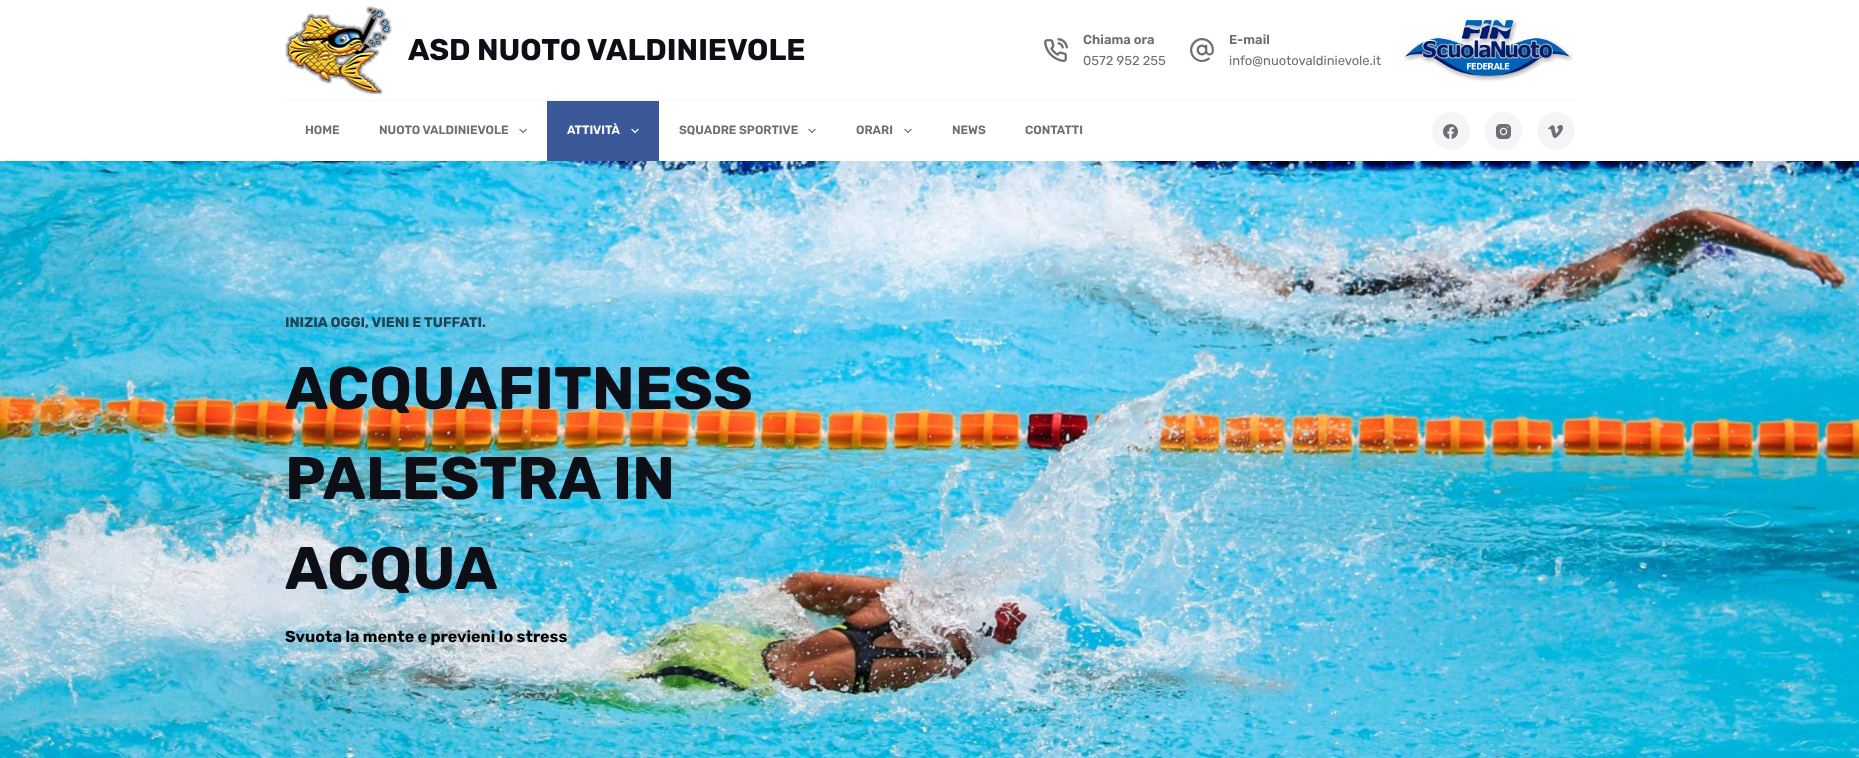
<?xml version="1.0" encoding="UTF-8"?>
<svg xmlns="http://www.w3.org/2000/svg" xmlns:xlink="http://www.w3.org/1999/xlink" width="1859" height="758">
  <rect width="100%" height="100%" fill="#ffffff" />
  <image x="285" y="6" width="107" height="88" xlink:href="image1.png" />
  <image x="1044" y="38" width="24" height="24" xlink:href="image2.png" />
  <image x="1190" y="38" width="24" height="24" xlink:href="image3.png" />
  <image x="1404" y="18" width="170" height="64" xlink:href="image4.png" />
  <rect x="285" y="100" width="1290" height="1" fill="#f4f5f6" />
  <image x="519" y="128" width="8" height="6" xlink:href="image5.png" />
  <rect x="547" y="101" width="112" height="60" fill="#3b5998" />
  <image x="631" y="128" width="8" height="6" xlink:href="image6.png" />
  <image x="808" y="128" width="8" height="6" xlink:href="image5.png" />
  <image x="904" y="128" width="8" height="6" xlink:href="image5.png" />
  <circle cx="1451" cy="131" r="19" fill="#f4f5f7" />
  <image x="1443" y="124" width="15" height="15" xlink:href="image7.png" />
  <rect x="1485" y="112" width="37" height="38" rx="18.5" fill="#f4f5f7" />
  <image x="1496" y="124" width="15" height="15" xlink:href="image8.png" />
  <circle cx="1556" cy="131" r="19" fill="#f4f5f7" />
  <image x="1548" y="125" width="15" height="13" xlink:href="image9.png" />
  <image x="0" y="161" width="1859" height="597" xlink:href="image10.png" />
  <text x="408" y="60" style="font-family: Rubik; font-size: 30px; font-weight: bold; fill: #0d0e16">ASD NUOTO VALDINIEVOLE</text>
  <text x="1083" y="44" style="font-family: Rubik; font-size: 13px; font-weight: 600; fill: #6e6e75">Chiama ora</text>
  <text x="1083" y="65" style="font-family: Rubik; font-size: 13px; fill: #6e6e75">0572 952 255</text>
  <text x="1229" y="44" style="font-family: Rubik; font-size: 13px; font-weight: 600; fill: #6e6e75">E-mail</text>
  <text x="1229" y="65" style="font-family: Rubik; font-size: 13px; fill: #6e6e75">info@nuotovaldinievole.it</text>
  <text x="305" y="134" style="font-family: Rubik; font-size: 12px; font-weight: 600; fill: #6e6e75">HOME</text>
  <text x="379" y="134" style="font-family: Rubik; font-size: 12px; font-weight: 600; fill: #6e6e75">NUOTO VALDINIEVOLE</text>
  <text x="567" y="134" style="font-family: Rubik; font-size: 12px; font-weight: 600; fill: #ffffff">ATTIVITÀ</text>
  <text x="679" y="134" style="font-family: Rubik; font-size: 12px; font-weight: 600; fill: #6e6e75">SQUADRE SPORTIVE</text>
  <text x="856" y="134" style="font-family: Rubik; font-size: 12px; font-weight: 600; fill: #6e6e75">ORARI</text>
  <text x="952" y="134" style="font-family: Rubik; font-size: 12px; font-weight: 600; fill: #6e6e75">NEWS</text>
  <text x="1025" y="134" style="font-family: Rubik; font-size: 12px; font-weight: 600; fill: #6e6e75">CONTATTI</text>
  <text x="285" y="327" style="font-family: Rubik; font-size: 14px; font-weight: bold; fill: #214455">INIZIA OGGI, VIENI E TUFFATI.</text>
  <text x="285" y="409" style="font-family: Rubik; font-size: 60px; font-weight: bold; fill: #0d0e16">ACQUAFITNESS</text>
  <text x="285" y="499" style="font-family: Rubik; font-size: 60px; font-weight: bold; fill: #0d0e16">PALESTRA IN</text>
  <text x="285" y="589" style="font-family: Rubik; font-size: 60px; font-weight: bold; fill: #0d0e16">ACQUA</text>
  <text x="285" y="642" style="font-family: Rubik; font-size: 16px; font-weight: bold; fill: #050505">Svuota la mente e previeni lo stress</text>
</svg>
